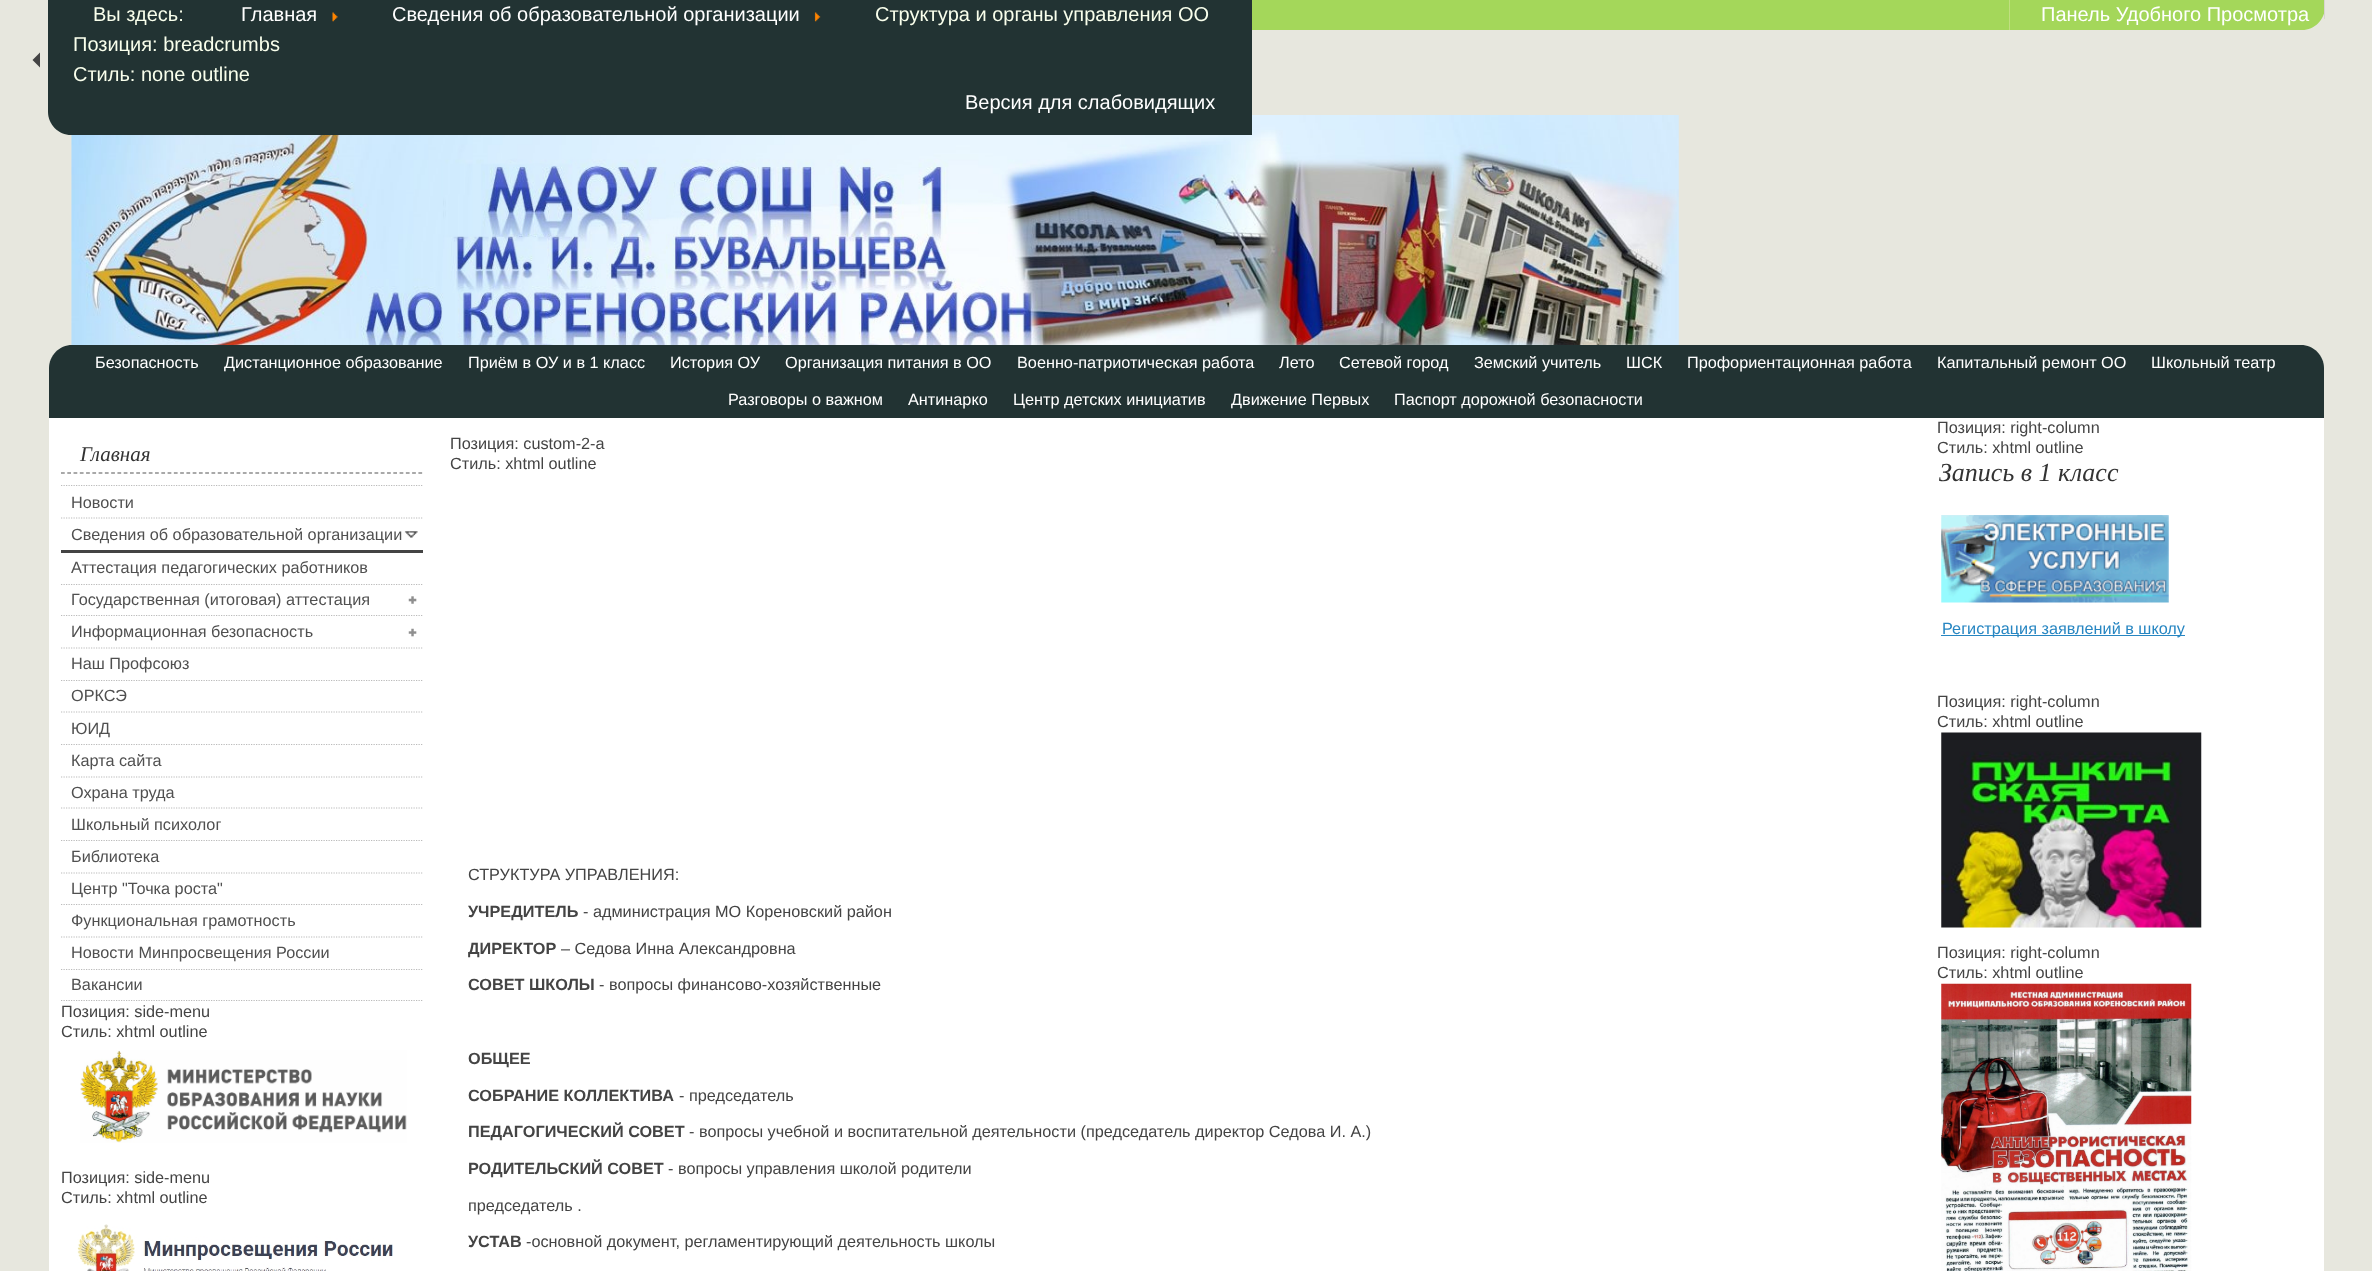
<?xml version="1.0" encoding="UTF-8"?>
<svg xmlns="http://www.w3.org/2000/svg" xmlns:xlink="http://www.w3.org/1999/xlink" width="2372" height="1271">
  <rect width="100%" height="100%" fill="#e7e7de" />
  <path d="M 48 0 h 2277 v 7 c 0 12.5 -10.5 23 -23 23 h -2231 c -12.5 0 -23 -10.5 -23 -23 z" fill="#a4d75a" />
  <rect x="2324" width="1" height="19" fill="#d9d5d0" />
  <image x="71" y="115" width="1608" height="231" xlink:href="image3.png" />
  <path d="M 48 0 h 1203 v 135 h -1180 c -12.5 0 -23 -10.5 -23 -23 z" fill="#223333" />
  <rect x="1251" width="1" height="135" fill="#223333" />
  <image x="332" y="12" width="6" height="10" xlink:href="image1.png" />
  <image x="814" y="12" width="7" height="10" xlink:href="image2.png" />
  <rect x="2009" width="1" height="30" fill="#c0df80" />
  <path d="M 40 52.5 v 15 l -7.5 -7.5 z" fill="#444444" />
  <path d="M 72 345 h 2229 c 12.5 0 23 10.5 23 23 v 50 h -2275 v -50 c 0 -12.5 10.5 -23 23 -23 z" fill="#223333" />
  <rect x="49" y="418" width="2275" height="853" fill="#ffffff" />
  <path d="M 61 473 h 361.5" fill="none" stroke="#555555" stroke-width="1.2" stroke-dasharray="3.75 2.52" />
  <path d="M 61 485.5 h 361.5" fill="none" stroke="#bbbbbb" stroke-width="1.2" stroke-dasharray="1.25 1.25" />
  <path d="M 61 518 h 361.5" fill="none" stroke="#bbbbbb" stroke-width="1.2" stroke-dasharray="1.25 1.25" />
  <image x="404" y="531" width="14" height="7" xlink:href="image4.png" />
  <rect x="61" y="550" width="362" height="3" fill="#444444" />
  <path d="M 61 584.5 h 361.5" fill="none" stroke="#bbbbbb" stroke-width="1.2" stroke-dasharray="1.25 1.25" />
  <image x="408" y="596" width="9" height="8" xlink:href="image5.png" />
  <path d="M 61 615.5 h 361.5" fill="none" stroke="#bbbbbb" stroke-width="1.2" stroke-dasharray="1.25 1.25" />
  <image x="408" y="628" width="9" height="9" xlink:href="image6.png" />
  <path d="M 61 648 h 361.5" fill="none" stroke="#bbbbbb" stroke-width="1.2" stroke-dasharray="1.25 1.25" />
  <path d="M 61 680.5 h 361.5" fill="none" stroke="#bbbbbb" stroke-width="1.2" stroke-dasharray="1.25 1.25" />
  <path d="M 61 712 h 361.5" fill="none" stroke="#bbbbbb" stroke-width="1.2" stroke-dasharray="1.25 1.25" />
  <path d="M 61 744.5 h 361.5" fill="none" stroke="#bbbbbb" stroke-width="1.2" stroke-dasharray="1.25 1.25" />
  <path d="M 61 777 h 361.5" fill="none" stroke="#bbbbbb" stroke-width="1.2" stroke-dasharray="1.25 1.25" />
  <path d="M 61 808 h 361.5" fill="none" stroke="#bbbbbb" stroke-width="1.2" stroke-dasharray="1.25 1.25" />
  <path d="M 61 840.5 h 361.5" fill="none" stroke="#bbbbbb" stroke-width="1.2" stroke-dasharray="1.25 1.25" />
  <path d="M 61 873 h 361.5" fill="none" stroke="#bbbbbb" stroke-width="1.2" stroke-dasharray="1.25 1.25" />
  <path d="M 61 904.5 h 361.5" fill="none" stroke="#bbbbbb" stroke-width="1.2" stroke-dasharray="1.25 1.25" />
  <path d="M 61 937 h 361.5" fill="none" stroke="#bbbbbb" stroke-width="1.2" stroke-dasharray="1.25 1.25" />
  <path d="M 61 969.5 h 361.5" fill="none" stroke="#bbbbbb" stroke-width="1.2" stroke-dasharray="1.25 1.25" />
  <path d="M 61 1000.5 h 361.5" fill="none" stroke="#bbbbbb" stroke-width="1.2" stroke-dasharray="1.25 1.25" />
  <image x="80" y="1050" width="327" height="93" xlink:href="image7.png" />
  <image x="77" y="1224" width="316" height="47" xlink:href="image8.png" />
  <image x="1941" y="515" width="228" height="88" xlink:href="image9.png" />
  <rect x="1941" y="635" width="244" height="1" fill="#2786c2" />
  <image x="1941" y="732" width="261" height="196" xlink:href="image10.png" />
  <image x="1941" y="983" width="251" height="288" xlink:href="image11.png" />
  <text x="93" y="21" style="font-family: Liberation Sans; font-size: 20px; fill: #f9ffec">Вы здесь:</text>
  <text x="241" y="21" style="font-family: Liberation Sans; font-size: 20px; fill: #ffffff">Главная</text>
  <text x="392" y="21" style="font-family: Liberation Sans; font-size: 20px; fill: #ffffff">Сведения об образовательной организации</text>
  <text x="875" y="21" style="font-family: Liberation Sans; font-size: 20px; fill: #f9ffec">Структура и органы управления ОО</text>
  <text x="73" y="51" style="font-family: Liberation Sans; font-size: 20px; fill: #f9ffec">Позиция: breadcrumbs</text>
  <text x="73" y="81" style="font-family: Liberation Sans; font-size: 20px; fill: #f9ffec">Стиль: none outline</text>
  <text x="965" y="109" style="font-family: Liberation Sans; font-size: 20px; fill: #ffffff">Версия для слабовидящих</text>
  <text x="2041" y="21" style="font-family: Liberation Sans; font-size: 20px; fill: #ffffff">Панель Удобного Просмотра</text>
  <text x="95" y="368" style="font-family: Liberation Sans; font-size: 16.25px; fill: #ffffff">Безопасность</text>
  <text x="224" y="368" style="font-family: Liberation Sans; font-size: 16.25px; fill: #ffffff">Дистанционное образование</text>
  <text x="468" y="368" style="font-family: Liberation Sans; font-size: 16.25px; fill: #ffffff">Приём в ОУ и в 1 класс</text>
  <text x="670" y="368" style="font-family: Liberation Sans; font-size: 16.25px; fill: #ffffff">История ОУ</text>
  <text x="785" y="368" style="font-family: Liberation Sans; font-size: 16.25px; fill: #ffffff">Организация питания в ОО</text>
  <text x="1017" y="368" style="font-family: Liberation Sans; font-size: 16.25px; fill: #ffffff">Военно-патриотическая работа</text>
  <text x="1279" y="368" style="font-family: Liberation Sans; font-size: 16.25px; fill: #ffffff">Лето</text>
  <text x="1339" y="368" style="font-family: Liberation Sans; font-size: 16.25px; fill: #ffffff">Сетевой город</text>
  <text x="1474" y="368" style="font-family: Liberation Sans; font-size: 16.25px; fill: #ffffff">Земский учитель</text>
  <text x="1626" y="368" style="font-family: Liberation Sans; font-size: 16.25px; fill: #ffffff">ШСК</text>
  <text x="1687" y="368" style="font-family: Liberation Sans; font-size: 16.25px; fill: #ffffff">Профориентационная работа</text>
  <text x="1937" y="368" style="font-family: Liberation Sans; font-size: 16.25px; fill: #ffffff">Капитальный ремонт ОО</text>
  <text x="2151" y="368" style="font-family: Liberation Sans; font-size: 16.25px; fill: #ffffff">Школьный театр</text>
  <text x="728" y="405" style="font-family: Liberation Sans; font-size: 16.25px; fill: #ffffff">Разговоры о важном</text>
  <text x="908" y="405" style="font-family: Liberation Sans; font-size: 16.25px; fill: #ffffff">Антинарко</text>
  <text x="1013" y="405" style="font-family: Liberation Sans; font-size: 16.25px; fill: #ffffff">Центр детских инициатив</text>
  <text x="1231" y="405" style="font-family: Liberation Sans; font-size: 16.25px; fill: #ffffff">Движение Первых</text>
  <text x="1394" y="405" style="font-family: Liberation Sans; font-size: 16.25px; fill: #ffffff">Паспорт дорожной безопасности</text>
  <text x="80" y="461" style="font-family: Liberation Serif; font-size: 21px; font-style: italic; fill: #333333">Главная</text>
  <text x="71" y="508" style="font-family: Liberation Sans; font-size: 16.25px; fill: #505050">Новости</text>
  <text x="71" y="540" style="font-family: Liberation Sans; font-size: 16.25px; fill: #505050">Сведения об образовательной организации</text>
  <text x="71" y="573" style="font-family: Liberation Sans; font-size: 16.25px; fill: #505050">Аттестация педагогических работников</text>
  <text x="71" y="605" style="font-family: Liberation Sans; font-size: 16.25px; fill: #505050">Государственная (итоговая) аттестация</text>
  <text x="71" y="637" style="font-family: Liberation Sans; font-size: 16.25px; fill: #505050">Информационная безопасность</text>
  <text x="71" y="669" style="font-family: Liberation Sans; font-size: 16.25px; fill: #505050">Наш Профсоюз</text>
  <text x="71" y="701" style="font-family: Liberation Sans; font-size: 16.25px; fill: #505050">ОРКСЭ</text>
  <text x="71" y="734" style="font-family: Liberation Sans; font-size: 16.25px; fill: #505050">ЮИД</text>
  <text x="71" y="766" style="font-family: Liberation Sans; font-size: 16.25px; fill: #505050">Карта сайта</text>
  <text x="71" y="798" style="font-family: Liberation Sans; font-size: 16.25px; fill: #505050">Охрана труда</text>
  <text x="71" y="830" style="font-family: Liberation Sans; font-size: 16.25px; fill: #505050">Школьный психолог</text>
  <text x="71" y="862" style="font-family: Liberation Sans; font-size: 16.25px; fill: #505050">Библиотека</text>
  <text x="71" y="894" style="font-family: Liberation Sans; font-size: 16.25px; fill: #505050">Центр "Точка роста"</text>
  <text x="71" y="926" style="font-family: Liberation Sans; font-size: 16.25px; fill: #505050">Функциональная грамотность</text>
  <text x="71" y="958" style="font-family: Liberation Sans; font-size: 16.25px; fill: #505050">Новости Минпросвещения России</text>
  <text x="71" y="990" style="font-family: Liberation Sans; font-size: 16.25px; fill: #505050">Вакансии</text>
  <text x="61" y="1017" style="font-family: Liberation Sans; font-size: 16.25px; fill: #444444">Позиция: side-menu</text>
  <text x="61" y="1037" style="font-family: Liberation Sans; font-size: 16.25px; fill: #444444">Стиль: xhtml outline</text>
  <text x="61" y="1183" style="font-family: Liberation Sans; font-size: 16.25px; fill: #444444">Позиция: side-menu</text>
  <text x="61" y="1203" style="font-family: Liberation Sans; font-size: 16.25px; fill: #444444">Стиль: xhtml outline</text>
  <text x="450" y="449" style="font-family: Liberation Sans; font-size: 16.25px; fill: #444444">Позиция: custom-2-a</text>
  <text x="450" y="469" style="font-family: Liberation Sans; font-size: 16.25px; fill: #444444">Стиль: xhtml outline</text>
  <text x="468" y="880" style="font-family: Liberation Sans; font-size: 16.25px; fill: #444444">СТРУКТУРА УПРАВЛЕНИЯ:</text>
  <text x="468" y="917" style="font-family: Liberation Sans; font-size: 16.25px; font-weight: bold; fill: #444444">УЧРЕДИТЕЛЬ</text>
  <text x="583" y="917" style="font-family: Liberation Sans; font-size: 16.25px; fill: #444444">- администрация МО Кореновский район</text>
  <text x="468" y="954" style="font-family: Liberation Sans; font-size: 16.25px; font-weight: bold; fill: #444444">ДИРЕКТОР</text>
  <text x="561" y="954" style="font-family: Liberation Sans; font-size: 16.25px; fill: #444444">– Седова Инна Александровна</text>
  <text x="468" y="990" style="font-family: Liberation Sans; font-size: 16.25px; font-weight: bold; fill: #444444">СОВЕТ ШКОЛЫ</text>
  <text x="599" y="990" style="font-family: Liberation Sans; font-size: 16.25px; fill: #444444">- вопросы финансово-хозяйственные</text>
  <text x="468" y="1064" style="font-family: Liberation Sans; font-size: 16.25px; font-weight: bold; fill: #444444">ОБЩЕЕ</text>
  <text x="468" y="1101" style="font-family: Liberation Sans; font-size: 16.25px; font-weight: bold; fill: #444444">СОБРАНИЕ КОЛЛЕКТИВА</text>
  <text x="679" y="1101" style="font-family: Liberation Sans; font-size: 16.25px; fill: #444444">- председатель</text>
  <text x="468" y="1137" style="font-family: Liberation Sans; font-size: 16.25px; font-weight: bold; fill: #444444">ПЕДАГОГИЧЕСКИЙ СОВЕТ</text>
  <text x="689" y="1137" style="font-family: Liberation Sans; font-size: 16.25px; fill: #444444">- вопросы учебной и воспитательной деятельности (председатель директор Седова И. А.)</text>
  <text x="468" y="1174" style="font-family: Liberation Sans; font-size: 16.25px; font-weight: bold; fill: #444444">РОДИТЕЛЬСКИЙ СОВЕТ</text>
  <text x="668" y="1174" style="font-family: Liberation Sans; font-size: 16.25px; fill: #444444">- вопросы управления школой родители</text>
  <text x="468" y="1211" style="font-family: Liberation Sans; font-size: 16.25px; fill: #444444">председатель .</text>
  <text x="468" y="1247" style="font-family: Liberation Sans; font-size: 16.25px; font-weight: bold; fill: #444444">УСТАВ</text>
  <text x="526" y="1247" style="font-family: Liberation Sans; font-size: 16.25px; fill: #444444">-основной документ, регламентирующий деятельность школы</text>
  <text x="1937" y="433" style="font-family: Liberation Sans; font-size: 16.25px; fill: #444444">Позиция: right-column</text>
  <text x="1937" y="453" style="font-family: Liberation Sans; font-size: 16.25px; fill: #444444">Стиль: xhtml outline</text>
  <text x="1939" y="481" style="font-family: Liberation Serif; font-size: 26px; font-style: italic; fill: #333333">Запись в 1 класс</text>
  <text x="1942" y="634" style="font-family: Liberation Sans; font-size: 16.25px; fill: #2786c2">Регистрация заявлений в школу</text>
  <text x="1937" y="707" style="font-family: Liberation Sans; font-size: 16.25px; fill: #444444">Позиция: right-column</text>
  <text x="1937" y="727" style="font-family: Liberation Sans; font-size: 16.25px; fill: #444444">Стиль: xhtml outline</text>
  <text x="1937" y="958" style="font-family: Liberation Sans; font-size: 16.25px; fill: #444444">Позиция: right-column</text>
  <text x="1937" y="978" style="font-family: Liberation Sans; font-size: 16.25px; fill: #444444">Стиль: xhtml outline</text>
</svg>
